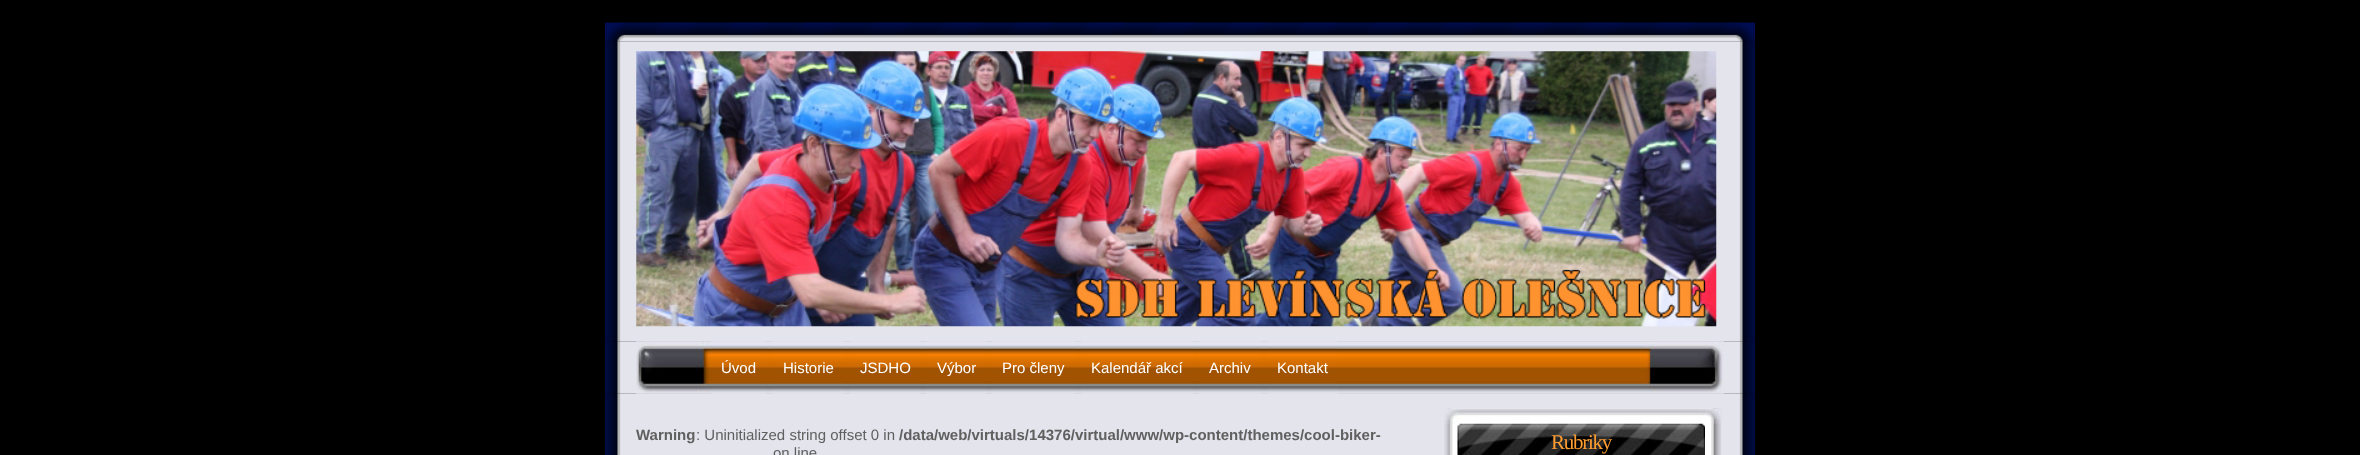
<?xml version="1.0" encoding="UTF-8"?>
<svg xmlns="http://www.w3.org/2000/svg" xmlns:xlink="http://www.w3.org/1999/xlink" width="2360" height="455">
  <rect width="100%" height="100%" fill="#000000" />
  <image x="605" y="22" width="1150" height="20" xlink:href="image1.png" />
  <image x="605" y="41" width="1150" height="301" xlink:href="image2.png" />
  <image x="636" y="51" width="1081" height="276" xlink:href="image3.png" />
  <image x="605" y="341" width="1150" height="53" xlink:href="image4.png" />
  <image x="636" y="341" width="1088" height="53" xlink:href="image5.png" />
  <image x="711" y="341" width="55" height="53" xlink:href="image6.png" />
  <image x="772" y="341" width="72" height="53" xlink:href="image7.png" />
  <image x="850" y="341" width="70" height="53" xlink:href="image8.png" />
  <image x="926" y="341" width="60" height="53" xlink:href="image9.png" />
  <image x="992" y="341" width="83" height="53" xlink:href="image10.png" />
  <image x="1081" y="341" width="112" height="53" xlink:href="image11.png" />
  <image x="1199" y="341" width="62" height="53" xlink:href="image12.png" />
  <image x="1267" y="341" width="71" height="53" xlink:href="image13.png" />
  <image x="605" y="393" width="1150" height="62" xlink:href="image14.png" />
  <image x="1444" y="408" width="278" height="47" xlink:href="image15.png" />
  <image x="1444" y="408" width="277" height="16" xlink:href="image16.png" />
  <image x="1457" y="423" width="248" height="32" xlink:href="image17.png" />
  <text x="721" y="373" style="font-family: Liberation Sans; font-size: 15px; fill: #ffffff">Úvod</text>
  <text x="783" y="373" style="font-family: Liberation Sans; font-size: 15px; fill: #ffffff">Historie</text>
  <text x="860" y="373" style="font-family: Liberation Sans; font-size: 15px; fill: #ffffff">JSDHO</text>
  <text x="937" y="373" style="font-family: Liberation Sans; font-size: 15px; fill: #ffffff">Výbor</text>
  <text x="1002" y="373" style="font-family: Liberation Sans; font-size: 15px; fill: #ffffff">Pro členy</text>
  <text x="1091" y="373" style="font-family: Liberation Sans; font-size: 15px; fill: #ffffff">Kalendář akcí</text>
  <text x="1209" y="373" style="font-family: Liberation Sans; font-size: 15px; fill: #ffffff">Archiv</text>
  <text x="1277" y="373" style="font-family: Liberation Sans; font-size: 15px; fill: #ffffff">Kontakt</text>
  <text x="636" y="440" style="font-family: Liberation Sans; font-size: 15px; font-weight: bold; fill: #606060">Warning</text>
  <text x="696" y="440" style="font-family: Liberation Sans; font-size: 15px; fill: #606060">: Uninitialized string offset 0 in</text>
  <text x="899" y="440" style="font-family: Liberation Sans; font-size: 15px; font-weight: bold; fill: #606060">/data/web/virtuals/14376/virtual/www/wp-content/themes/cool-biker-</text>
  <text x="773" y="458" style="font-family: Liberation Sans; font-size: 15px; fill: #606060">on line</text>
  <text x="1551" y="449" style="font-family: Liberation Serif; font-size: 21px; letter-spacing: -1.25px; fill: #ff9d30">Rubriky</text>
</svg>
